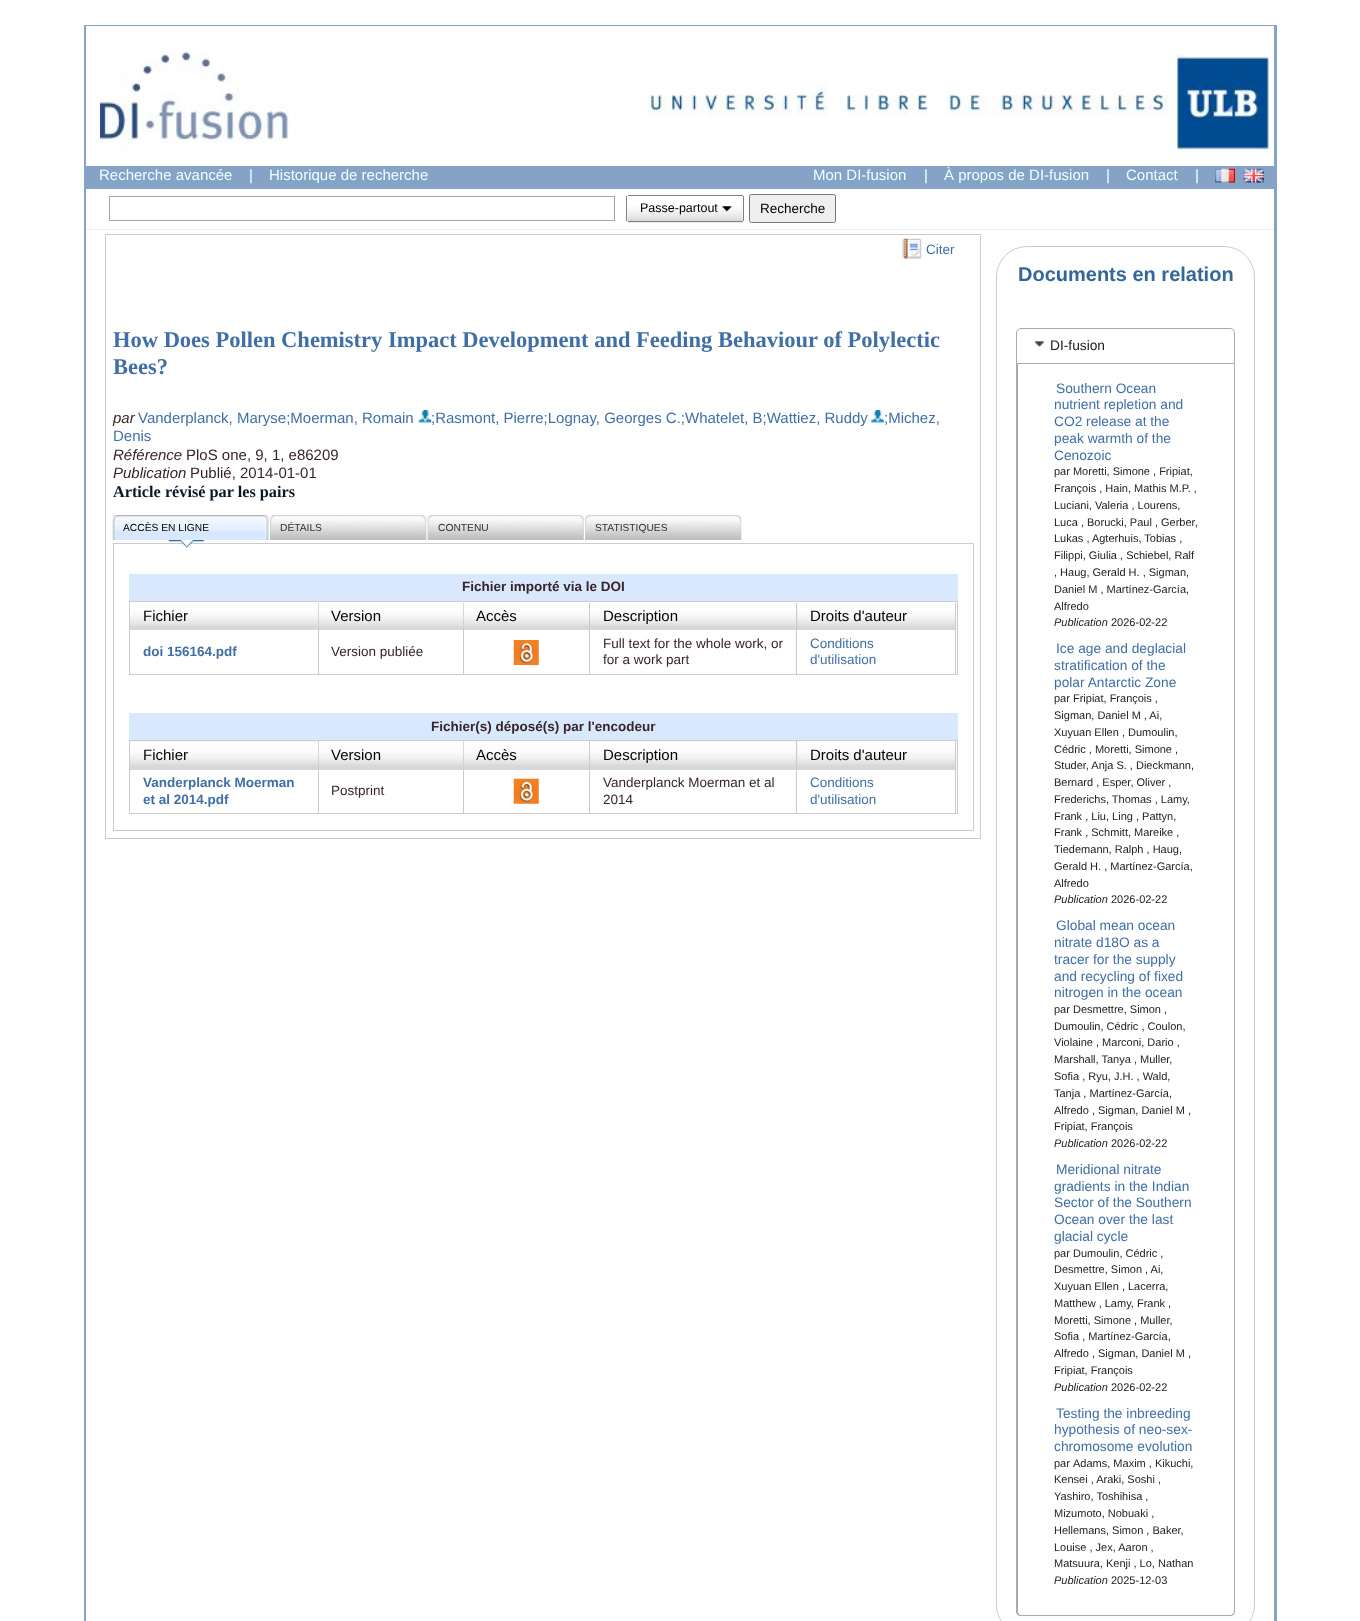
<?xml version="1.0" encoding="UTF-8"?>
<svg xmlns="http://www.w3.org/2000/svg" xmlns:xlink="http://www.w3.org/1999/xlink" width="1360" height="1621">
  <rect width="100%" height="100%" fill="#ffffff" />
  <rect x="84" y="25" width="1193" height="1596" fill="#85a3c6" />
  <rect x="86" y="26" width="1188" height="1595" fill="#ffffff" />
  <image x="100" y="52" width="189" height="100" xlink:href="image1.png" />
  <image x="647" y="55" width="626" height="97" xlink:href="image2.png" />
  <rect x="86" y="166" width="1188" height="23" fill="#85a3c6" />
  <image x="1215" y="168" width="20" height="15" xlink:href="image3.png" />
  <image x="1243" y="168" width="21" height="15" xlink:href="image4.png" />
  <rect x="109.5" y="196.5" width="505" height="24" fill="none" stroke="#a6a6a6" />
  <image x="627" y="206" width="116" height="17" xlink:href="image5.png" />
  <rect x="628" y="195" width="115" height="1" fill="#808080" />
  <rect x="628" y="221" width="115" height="1" fill="#808080" />
  <rect x="743" y="196" width="1" height="25" fill="#808080" />
  <rect x="626" y="196" width="1" height="25" fill="#808080" />
  <image x="722" y="206" width="10" height="6" xlink:href="image6.png" />
  <rect x="749.5" y="194.5" width="86" height="28" rx="2" fill="#efefef" stroke="#767676" />
  <rect x="86" y="229" width="1188" height="1" fill="#eeeeee" />
  <rect x="105.5" y="234.5" width="875" height="604" fill="none" stroke="#cccccc" />
  <image x="901" y="238" width="21" height="21" xlink:href="image7.png" />
  <image x="418" y="410" width="14" height="13" xlink:href="image8.png" />
  <image x="871" y="410" width="13" height="13" xlink:href="image9.png" />
  <image x="112" y="515" width="157" height="25" xlink:href="image10.png" />
  <rect x="113.5" y="543.5" width="860" height="287" fill="none" stroke="#cccccc" />
  <image x="168" y="540" width="36" height="8" xlink:href="image11.png" />
  <image x="270" y="515" width="157" height="25" xlink:href="image12.png" />
  <image x="427" y="515" width="157" height="25" xlink:href="image13.png" />
  <image x="585" y="515" width="157" height="25" xlink:href="image12.png" />
  <rect x="129" y="574" width="829" height="27" fill="#d8e8ff" />
  <rect x="129.5" y="601.5" width="828" height="73" fill="none" stroke="#cccccc" />
  <rect x="130" y="626" width="188" height="4" fill="#d8d8da" />
  <image x="130" y="603" width="188" height="23" xlink:href="image14.png" />
  <rect x="318" y="603" width="1" height="71" fill="#cbcbcb" />
  <image x="318" y="603" width="145" height="27" xlink:href="image15.png" />
  <rect x="463" y="603" width="1" height="71" fill="#cbcbcb" />
  <image x="463" y="603" width="126" height="27" xlink:href="image16.png" />
  <rect x="589" y="603" width="1" height="71" fill="#cbcbcb" />
  <rect x="590" y="603" width="208" height="27" fill="#d8d8da" />
  <image x="590" y="603" width="208" height="23" xlink:href="image17.png" />
  <rect x="796" y="603" width="1" height="71" fill="#cbcbcb" />
  <image x="797" y="603" width="160" height="27" xlink:href="image18.png" />
  <rect x="955" y="603" width="1" height="71" fill="#cbcbcb" />
  <image x="513" y="640" width="26" height="25" xlink:href="image19.png" />
  <rect x="129" y="713" width="829" height="27" fill="#d8e8ff" />
  <rect x="129.5" y="740.5" width="828" height="73" fill="none" stroke="#cccccc" />
  <rect x="130" y="741" width="188" height="29" fill="#d8d8da" />
  <image x="130" y="741" width="188" height="24" xlink:href="image20.png" />
  <rect x="318" y="741" width="1" height="72" fill="#cbcbcb" />
  <image x="318" y="741" width="145" height="29" xlink:href="image21.png" />
  <rect x="463" y="741" width="1" height="72" fill="#cbcbcb" />
  <image x="463" y="741" width="126" height="29" xlink:href="image22.png" />
  <rect x="589" y="741" width="1" height="72" fill="#cbcbcb" />
  <rect x="590" y="741" width="208" height="29" fill="#d8d8da" />
  <image x="590" y="741" width="208" height="24" xlink:href="image23.png" />
  <rect x="796" y="741" width="1" height="72" fill="#cbcbcb" />
  <image x="797" y="741" width="160" height="29" xlink:href="image24.png" />
  <rect x="955" y="741" width="1" height="72" fill="#cbcbcb" />
  <image x="513" y="778" width="26" height="26" xlink:href="image25.png" />
  <rect x="996.5" y="246.5" width="258" height="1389" rx="30.5" fill="none" stroke="#cccccc" />
  <path d="M 1021 328.5 h 209 c 2.5 0 4.5 2 4.5 4.5 v 30.5 h -218 v -30.5 c 0 -2.5 2 -4.5 4.5 -4.5 z" fill="none" stroke="#aaaaaa" />
  <image x="1034" y="341" width="10" height="6" xlink:href="image26.png" />
  <path d="M 1016 364 h 219 v 1247 c 0 3 -2 5 -5 5 h -209 c -3 0 -5 -2 -5 -5 z m 2 0 h 216 v 1247 c 0 2 -2 4 -4 4 h -209 c -2 0 -3 -2 -3 -4 z" fill="#aaaaaa" fill-rule="evenodd" />
  <text x="99" y="180" style="font-family: Liberation Sans; font-size: 15px; fill: #eeffff">Recherche avancée</text>
  <text x="249" y="180" style="font-family: Liberation Sans; font-size: 15px; fill: #ffffff">|</text>
  <text x="269" y="180" style="font-family: Liberation Sans; font-size: 15px; fill: #eeffff">Historique de recherche</text>
  <text x="813" y="180" style="font-family: Liberation Sans; font-size: 15px; fill: #eeffff">Mon DI-fusion</text>
  <text x="924" y="180" style="font-family: Liberation Sans; font-size: 15px; fill: #ffffff">|</text>
  <text x="944" y="180" style="font-family: Liberation Sans; font-size: 15px; fill: #eeffff">À propos de DI-fusion</text>
  <text x="1106" y="180" style="font-family: Liberation Sans; font-size: 15px; fill: #ffffff">|</text>
  <text x="1126" y="180" style="font-family: Liberation Sans; font-size: 15px; fill: #eeffff">Contact</text>
  <text x="1195" y="180" style="font-family: Liberation Sans; font-size: 15px; fill: #ffffff">|</text>
  <text x="640" y="212" style="font-family: Liberation Sans; font-size: 12.5px; fill: #000000">Passe-partout</text>
  <text x="760" y="213" style="font-family: Liberation Sans; font-size: 13.5px; fill: #000000">Recherche</text>
  <text x="926" y="254" style="font-family: Liberation Sans; font-size: 13.5px; fill: #406fa6">Citer</text>
  <text x="113" y="347" style="font-family: Liberation Serif; font-size: 22.5px; font-weight: bold; fill: #406fa6">How Does Pollen Chemistry Impact Development and Feeding Behaviour of Polylectic</text>
  <text x="113" y="374" style="font-family: Liberation Serif; font-size: 22.5px; font-weight: bold; fill: #406fa6">Bees?</text>
  <text x="113" y="423" style="font-family: Liberation Sans; font-size: 15px; font-style: italic; fill: #392529">par</text>
  <text x="138" y="423" style="font-family: Liberation Sans; font-size: 15px; fill: #406fa6">Vanderplanck, Maryse;Moerman, Romain</text>
  <text x="431" y="423" style="font-family: Liberation Sans; font-size: 15px; fill: #406fa6">;Rasmont, Pierre;Lognay, Georges C.;Whatelet, B;Wattiez, Ruddy</text>
  <text x="884" y="423" style="font-family: Liberation Sans; font-size: 15px; fill: #406fa6">;Michez,</text>
  <text x="113" y="441" style="font-family: Liberation Sans; font-size: 15px; fill: #406fa6">Denis</text>
  <text x="113" y="460" style="font-family: Liberation Sans; font-size: 15px; font-style: italic; fill: #392529">Référence</text>
  <text x="186" y="460" style="font-family: Liberation Sans; font-size: 15px; fill: #392529">PloS one, 9, 1, e86209</text>
  <text x="113" y="478" style="font-family: Liberation Sans; font-size: 15px; font-style: italic; fill: #392529">Publication</text>
  <text x="190" y="478" style="font-family: Liberation Sans; font-size: 15px; fill: #392529">Publié, 2014-01-01</text>
  <text x="113" y="497" style="font-family: Liberation Serif; font-size: 16.25px; font-weight: bold; fill: #071829">Article révisé par les pairs</text>
  <text x="123" y="531" style="font-family: Liberation Sans; font-size: 10.25px; fill: #000000">ACCÈS EN LIGNE</text>
  <text x="280" y="531" style="font-family: Liberation Sans; font-size: 10.25px; fill: #333333">DÉTAILS</text>
  <text x="438" y="531" style="font-family: Liberation Sans; font-size: 10.25px; fill: #333333">CONTENU</text>
  <text x="595" y="531" style="font-family: Liberation Sans; font-size: 10.25px; fill: #333333">STATISTIQUES</text>
  <text x="462" y="591" style="font-family: Liberation Sans; font-size: 13.5px; font-weight: bold; fill: #392529">Fichier importé via le DOI</text>
  <text x="143" y="621" style="font-family: Liberation Sans; font-size: 15px; fill: #000000">Fichier</text>
  <text x="331" y="621" style="font-family: Liberation Sans; font-size: 15px; fill: #000000">Version</text>
  <text x="476" y="621" style="font-family: Liberation Sans; font-size: 15px; fill: #000000">Accès</text>
  <text x="603" y="621" style="font-family: Liberation Sans; font-size: 15px; fill: #000000">Description</text>
  <text x="810" y="621" style="font-family: Liberation Sans; font-size: 15px; fill: #000000">Droits d'auteur</text>
  <text x="143" y="656" style="font-family: Liberation Sans; font-size: 13.5px; font-weight: bold; fill: #406fa6">doi 156164.pdf</text>
  <text x="331" y="656" style="font-family: Liberation Sans; font-size: 13.5px; fill: #392529">Version publiée</text>
  <text x="603" y="648" style="font-family: Liberation Sans; font-size: 13.5px; fill: #392529">Full text for the whole work, or</text>
  <text x="603" y="664" style="font-family: Liberation Sans; font-size: 13.5px; fill: #392529">for a work part</text>
  <text x="810" y="648" style="font-family: Liberation Sans; font-size: 13.5px; fill: #406fa6">Conditions</text>
  <text x="810" y="664" style="font-family: Liberation Sans; font-size: 13.5px; fill: #406fa6">d'utilisation</text>
  <text x="431" y="731" style="font-family: Liberation Sans; font-size: 13.5px; font-weight: bold; fill: #392529">Fichier(s) déposé(s) par l'encodeur</text>
  <text x="143" y="760" style="font-family: Liberation Sans; font-size: 15px; fill: #000000">Fichier</text>
  <text x="331" y="760" style="font-family: Liberation Sans; font-size: 15px; fill: #000000">Version</text>
  <text x="476" y="760" style="font-family: Liberation Sans; font-size: 15px; fill: #000000">Accès</text>
  <text x="603" y="760" style="font-family: Liberation Sans; font-size: 15px; fill: #000000">Description</text>
  <text x="810" y="760" style="font-family: Liberation Sans; font-size: 15px; fill: #000000">Droits d'auteur</text>
  <text x="143" y="787" style="font-family: Liberation Sans; font-size: 13.5px; font-weight: bold; fill: #406fa6">Vanderplanck Moerman</text>
  <text x="143" y="804" style="font-family: Liberation Sans; font-size: 13.5px; font-weight: bold; fill: #406fa6">et al 2014.pdf</text>
  <text x="331" y="795" style="font-family: Liberation Sans; font-size: 13.5px; fill: #392529">Postprint</text>
  <text x="603" y="787" style="font-family: Liberation Sans; font-size: 13.5px; fill: #392529">Vanderplanck Moerman et al</text>
  <text x="603" y="804" style="font-family: Liberation Sans; font-size: 13.5px; fill: #392529">2014</text>
  <text x="810" y="787" style="font-family: Liberation Sans; font-size: 13.5px; fill: #406fa6">Conditions</text>
  <text x="810" y="804" style="font-family: Liberation Sans; font-size: 13.5px; fill: #406fa6">d'utilisation</text>
  <text x="1018" y="281" style="font-family: Liberation Sans; font-size: 20px; font-weight: bold; fill: #336699">Documents en relation</text>
  <text x="1050" y="350" style="font-family: Liberation Sans; font-size: 13.75px; fill: #222222">DI-fusion</text>
  <text x="1056" y="393" style="font-family: Liberation Sans; font-size: 13.75px; fill: #406fa6">Southern Ocean</text>
  <text x="1054" y="409" style="font-family: Liberation Sans; font-size: 13.75px; fill: #406fa6">nutrient repletion and</text>
  <text x="1054" y="426" style="font-family: Liberation Sans; font-size: 13.75px; fill: #406fa6">CO2 release at the</text>
  <text x="1054" y="443" style="font-family: Liberation Sans; font-size: 13.75px; fill: #406fa6">peak warmth of the</text>
  <text x="1054" y="460" style="font-family: Liberation Sans; font-size: 13.75px; fill: #406fa6">Cenozoic</text>
  <text x="1054" y="475" style="font-family: Liberation Sans; font-size: 11px; fill: #222222">par Moretti, Simone , Fripiat,</text>
  <text x="1054" y="492" style="font-family: Liberation Sans; font-size: 11px; fill: #222222">François , Hain, Mathis M.P. ,</text>
  <text x="1054" y="509" style="font-family: Liberation Sans; font-size: 11px; fill: #222222">Luciani, Valeria , Lourens,</text>
  <text x="1054" y="526" style="font-family: Liberation Sans; font-size: 11px; fill: #222222">Luca , Borucki, Paul , Gerber,</text>
  <text x="1054" y="542" style="font-family: Liberation Sans; font-size: 11px; fill: #222222">Lukas , Agterhuis, Tobias ,</text>
  <text x="1054" y="559" style="font-family: Liberation Sans; font-size: 11px; fill: #222222">Filippi, Giulia , Schiebel, Ralf</text>
  <text x="1054" y="576" style="font-family: Liberation Sans; font-size: 11px; fill: #222222">, Haug, Gerald H. , Sigman,</text>
  <text x="1054" y="593" style="font-family: Liberation Sans; font-size: 11px; fill: #222222">Daniel M , Martínez-García,</text>
  <text x="1054" y="610" style="font-family: Liberation Sans; font-size: 11px; fill: #222222">Alfredo</text>
  <text x="1054" y="626" style="font-family: Liberation Sans; font-size: 11px; font-style: italic; fill: #222222">Publication</text>
  <text x="1111" y="626" style="font-family: Liberation Sans; font-size: 11px; fill: #222222">2026-02-22</text>
  <text x="1056" y="653" style="font-family: Liberation Sans; font-size: 13.75px; fill: #406fa6">Ice age and deglacial</text>
  <text x="1054" y="670" style="font-family: Liberation Sans; font-size: 13.75px; fill: #406fa6">stratification of the</text>
  <text x="1054" y="687" style="font-family: Liberation Sans; font-size: 13.75px; fill: #406fa6">polar Antarctic Zone</text>
  <text x="1054" y="702" style="font-family: Liberation Sans; font-size: 11px; fill: #222222">par Fripiat, François ,</text>
  <text x="1054" y="719" style="font-family: Liberation Sans; font-size: 11px; fill: #222222">Sigman, Daniel M , Ai,</text>
  <text x="1054" y="736" style="font-family: Liberation Sans; font-size: 11px; fill: #222222">Xuyuan Ellen , Dumoulin,</text>
  <text x="1054" y="753" style="font-family: Liberation Sans; font-size: 11px; fill: #222222">Cédric , Moretti, Simone ,</text>
  <text x="1054" y="769" style="font-family: Liberation Sans; font-size: 11px; fill: #222222">Studer, Anja S. , Dieckmann,</text>
  <text x="1054" y="786" style="font-family: Liberation Sans; font-size: 11px; fill: #222222">Bernard , Esper, Oliver ,</text>
  <text x="1054" y="803" style="font-family: Liberation Sans; font-size: 11px; fill: #222222">Frederichs, Thomas , Lamy,</text>
  <text x="1054" y="820" style="font-family: Liberation Sans; font-size: 11px; fill: #222222">Frank , Liu, Ling , Pattyn,</text>
  <text x="1054" y="836" style="font-family: Liberation Sans; font-size: 11px; fill: #222222">Frank , Schmitt, Mareike ,</text>
  <text x="1054" y="853" style="font-family: Liberation Sans; font-size: 11px; fill: #222222">Tiedemann, Ralph , Haug,</text>
  <text x="1054" y="870" style="font-family: Liberation Sans; font-size: 11px; fill: #222222">Gerald H. , Martínez-García,</text>
  <text x="1054" y="887" style="font-family: Liberation Sans; font-size: 11px; fill: #222222">Alfredo</text>
  <text x="1054" y="903" style="font-family: Liberation Sans; font-size: 11px; font-style: italic; fill: #222222">Publication</text>
  <text x="1111" y="903" style="font-family: Liberation Sans; font-size: 11px; fill: #222222">2026-02-22</text>
  <text x="1056" y="930" style="font-family: Liberation Sans; font-size: 13.75px; fill: #406fa6">Global mean ocean</text>
  <text x="1054" y="947" style="font-family: Liberation Sans; font-size: 13.75px; fill: #406fa6">nitrate d18O as a</text>
  <text x="1054" y="964" style="font-family: Liberation Sans; font-size: 13.75px; fill: #406fa6">tracer for the supply</text>
  <text x="1054" y="981" style="font-family: Liberation Sans; font-size: 13.75px; fill: #406fa6">and recycling of fixed</text>
  <text x="1054" y="997" style="font-family: Liberation Sans; font-size: 13.75px; fill: #406fa6">nitrogen in the ocean</text>
  <text x="1054" y="1013" style="font-family: Liberation Sans; font-size: 11px; fill: #222222">par Desmettre, Simon ,</text>
  <text x="1054" y="1030" style="font-family: Liberation Sans; font-size: 11px; fill: #222222">Dumoulin, Cédric , Coulon,</text>
  <text x="1054" y="1046" style="font-family: Liberation Sans; font-size: 11px; fill: #222222">Violaine , Marconi, Dario ,</text>
  <text x="1054" y="1063" style="font-family: Liberation Sans; font-size: 11px; fill: #222222">Marshall, Tanya , Muller,</text>
  <text x="1054" y="1080" style="font-family: Liberation Sans; font-size: 11px; fill: #222222">Sofia , Ryu, J.H. , Wald,</text>
  <text x="1054" y="1097" style="font-family: Liberation Sans; font-size: 11px; fill: #222222">Tanja , Martínez-García,</text>
  <text x="1054" y="1114" style="font-family: Liberation Sans; font-size: 11px; fill: #222222">Alfredo , Sigman, Daniel M ,</text>
  <text x="1054" y="1130" style="font-family: Liberation Sans; font-size: 11px; fill: #222222">Fripiat, François</text>
  <text x="1054" y="1147" style="font-family: Liberation Sans; font-size: 11px; font-style: italic; fill: #222222">Publication</text>
  <text x="1111" y="1147" style="font-family: Liberation Sans; font-size: 11px; fill: #222222">2026-02-22</text>
  <text x="1056" y="1174" style="font-family: Liberation Sans; font-size: 13.75px; fill: #406fa6">Meridional nitrate</text>
  <text x="1054" y="1191" style="font-family: Liberation Sans; font-size: 13.75px; fill: #406fa6">gradients in the Indian</text>
  <text x="1054" y="1207" style="font-family: Liberation Sans; font-size: 13.75px; fill: #406fa6">Sector of the Southern</text>
  <text x="1054" y="1224" style="font-family: Liberation Sans; font-size: 13.75px; fill: #406fa6">Ocean over the last</text>
  <text x="1054" y="1241" style="font-family: Liberation Sans; font-size: 13.75px; fill: #406fa6">glacial cycle</text>
  <text x="1054" y="1257" style="font-family: Liberation Sans; font-size: 11px; fill: #222222">par Dumoulin, Cédric ,</text>
  <text x="1054" y="1273" style="font-family: Liberation Sans; font-size: 11px; fill: #222222">Desmettre, Simon , Ai,</text>
  <text x="1054" y="1290" style="font-family: Liberation Sans; font-size: 11px; fill: #222222">Xuyuan Ellen , Lacerra,</text>
  <text x="1054" y="1307" style="font-family: Liberation Sans; font-size: 11px; fill: #222222">Matthew , Lamy, Frank ,</text>
  <text x="1054" y="1324" style="font-family: Liberation Sans; font-size: 11px; fill: #222222">Moretti, Simone , Muller,</text>
  <text x="1054" y="1340" style="font-family: Liberation Sans; font-size: 11px; fill: #222222">Sofia , Martínez-García,</text>
  <text x="1054" y="1357" style="font-family: Liberation Sans; font-size: 11px; fill: #222222">Alfredo , Sigman, Daniel M ,</text>
  <text x="1054" y="1374" style="font-family: Liberation Sans; font-size: 11px; fill: #222222">Fripiat, François</text>
  <text x="1054" y="1391" style="font-family: Liberation Sans; font-size: 11px; font-style: italic; fill: #222222">Publication</text>
  <text x="1111" y="1391" style="font-family: Liberation Sans; font-size: 11px; fill: #222222">2026-02-22</text>
  <text x="1056" y="1418" style="font-family: Liberation Sans; font-size: 13.75px; fill: #406fa6">Testing the inbreeding</text>
  <text x="1054" y="1434" style="font-family: Liberation Sans; font-size: 13.75px; fill: #406fa6">hypothesis of neo-sex-</text>
  <text x="1054" y="1451" style="font-family: Liberation Sans; font-size: 13.75px; fill: #406fa6">chromosome evolution</text>
  <text x="1054" y="1467" style="font-family: Liberation Sans; font-size: 11px; fill: #222222">par</text>
  <text x="1073" y="1467" style="font-family: Liberation Sans; font-size: 11px; fill: #222222">Adams, Maxim , Kikuchi,</text>
  <text x="1054" y="1483" style="font-family: Liberation Sans; font-size: 11px; fill: #222222">Kensei , Araki, Soshi ,</text>
  <text x="1054" y="1500" style="font-family: Liberation Sans; font-size: 11px; fill: #222222">Yashiro, Toshihisa ,</text>
  <text x="1054" y="1517" style="font-family: Liberation Sans; font-size: 11px; fill: #222222">Mizumoto, Nobuaki ,</text>
  <text x="1054" y="1534" style="font-family: Liberation Sans; font-size: 11px; fill: #222222">Hellemans, Simon , Baker,</text>
  <text x="1054" y="1551" style="font-family: Liberation Sans; font-size: 11px; fill: #222222">Louise , Jex, Aaron ,</text>
  <text x="1054" y="1567" style="font-family: Liberation Sans; font-size: 11px; fill: #222222">Matsuura, Kenji , Lo, Nathan</text>
  <text x="1054" y="1584" style="font-family: Liberation Sans; font-size: 11px; font-style: italic; fill: #222222">Publication</text>
  <text x="1111" y="1584" style="font-family: Liberation Sans; font-size: 11px; fill: #222222">2025-12-03</text>
</svg>
